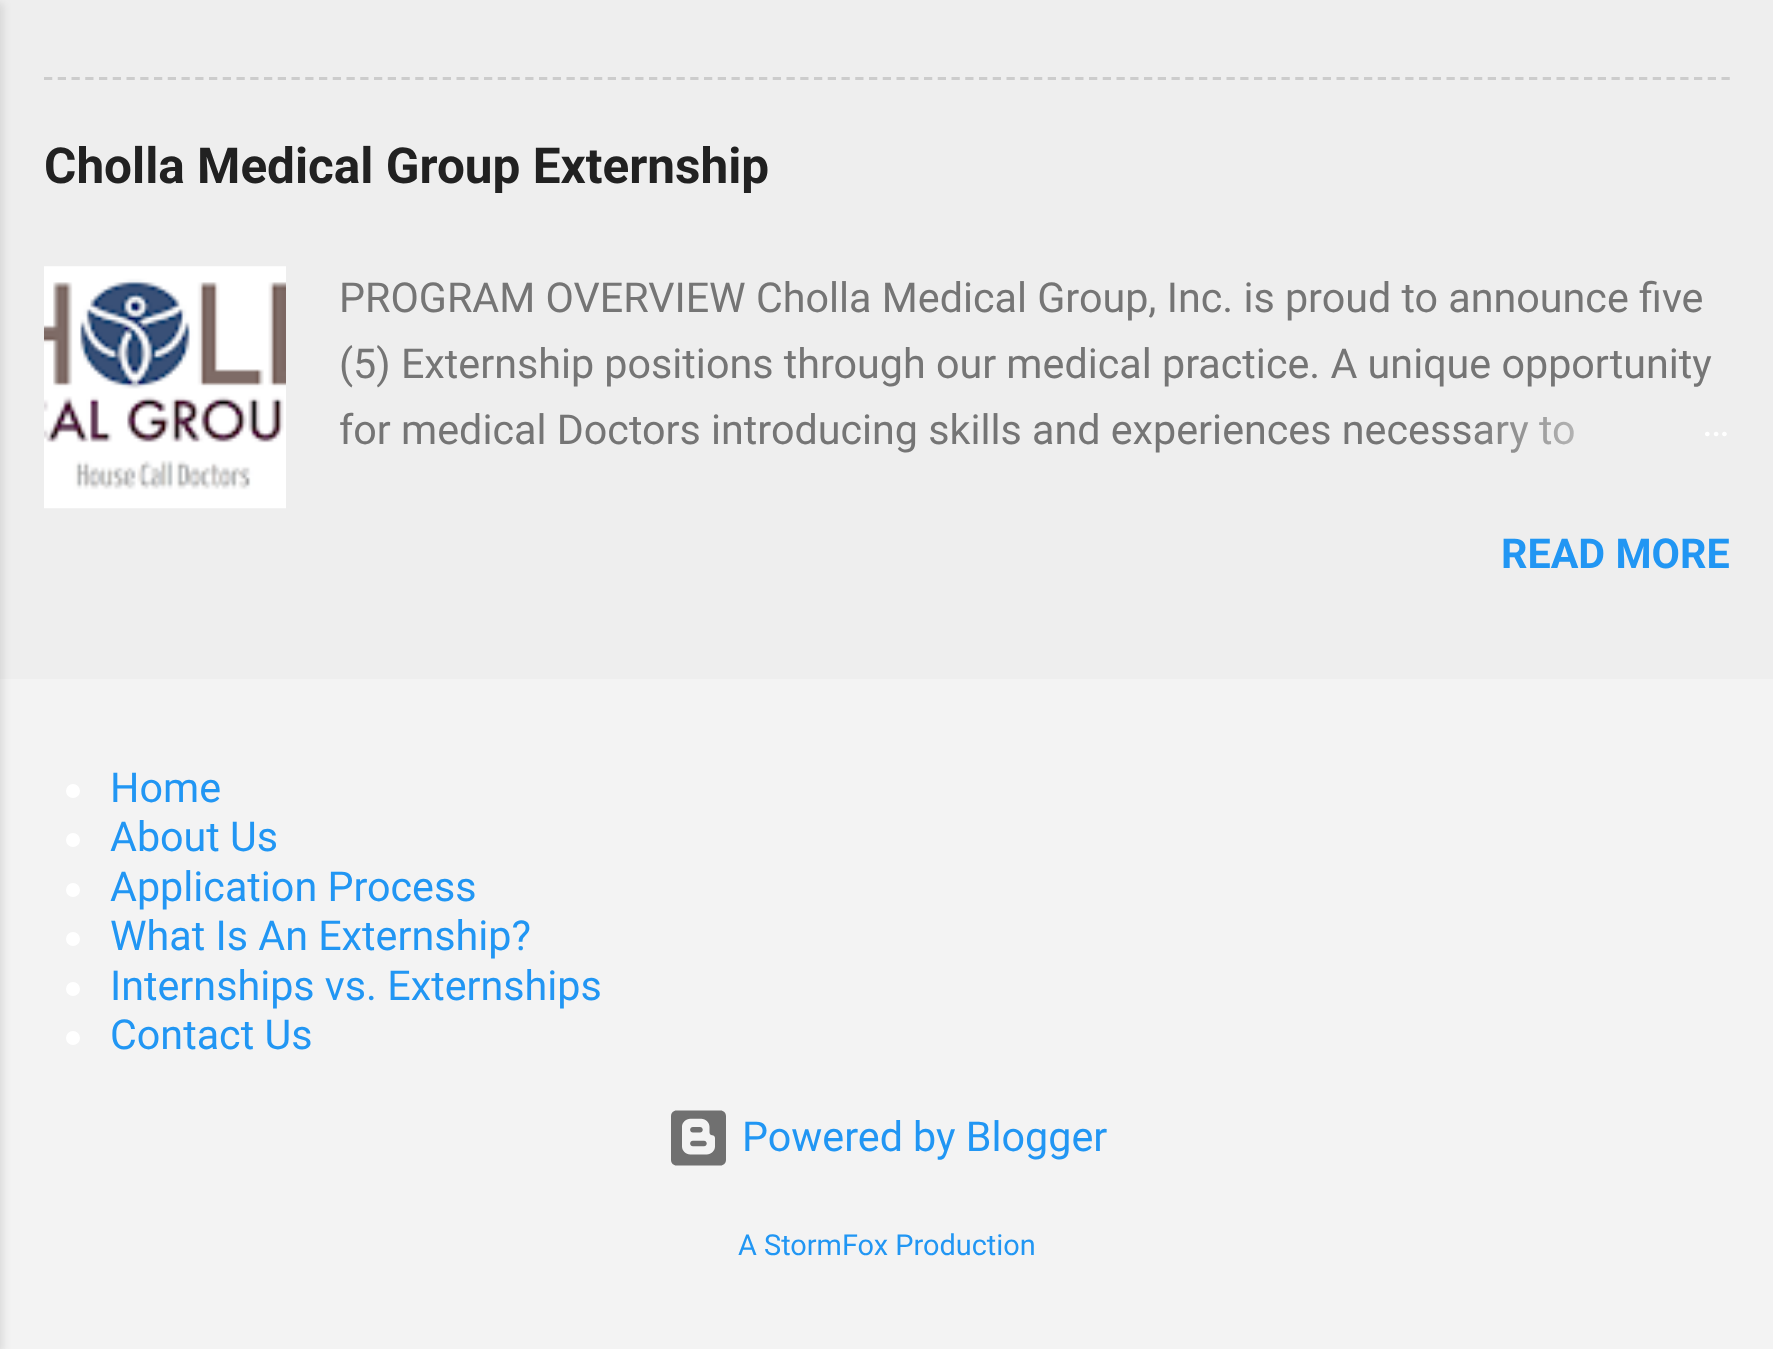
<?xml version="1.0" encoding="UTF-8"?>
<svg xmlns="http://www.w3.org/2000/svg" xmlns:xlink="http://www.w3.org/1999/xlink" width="1773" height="1349">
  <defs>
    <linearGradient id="g1" gradientUnits="userSpaceOnUse" x1="1730" y1="432" x2="1466" y2="432"><stop offset="0" stop-color="#eeeeee" /><stop offset="0.2" stop-color="#eeeeee" /><stop offset="1" stop-color="#eeeeee" stop-opacity="0" /></linearGradient>
  </defs>
  <rect width="100%" height="100%" fill="#f3f3f3" />
  <rect width="1773" height="679" fill="#eeeeee" />
  <rect x="-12" y="3" width="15" height="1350" fill="#000000" fill-opacity="0.1" filter="blur(4px)" />
  <path d="M 44 78.5 h 1686" fill="none" stroke="#cccccc" stroke-width="2.8" stroke-dasharray="8.25 5.5" />
  <image x="44" y="266" width="242" height="243" xlink:href="image1.png" />
  <circle cx="73" cy="791" r="7" fill="#ffffff" />
  <circle cx="73" cy="840" r="7" fill="#ffffff" />
  <circle cx="73" cy="890" r="7" fill="#ffffff" />
  <circle cx="73" cy="939" r="7" fill="#ffffff" />
  <circle cx="73" cy="989" r="7" fill="#ffffff" />
  <circle cx="73" cy="1038" r="7" fill="#ffffff" />
  <image x="671" y="1110" width="55" height="56" xlink:href="image2.png" />
  <text x="44" y="183" style="font-family: Roboto; font-size: 49.5px; font-weight: bold; fill: #212121">Cholla Medical Group Externship</text>
  <text x="339" y="312" style="font-family: Roboto; font-size: 41.25px; fill: #757575">PROGRAM OVERVIEW Cholla Medical Group, Inc. is proud to announce five</text>
  <text x="339" y="378" style="font-family: Roboto; font-size: 41.25px; fill: #757575">(5) Externship positions through our medical practice. A unique opportunity</text>
  <text x="339" y="444" style="font-family: Roboto; font-size: 41.25px; fill: #757575">for medical Doctors introducing skills and experiences necessary to</text>
  <rect x="1475" y="416" width="99" height="37" fill="url(#g1)" />
  <text x="1702" y="436" style="font-family: Roboto; font-size: 41.25px; fill: #ffffff">…</text>
  <text x="1501" y="568" style="font-family: Roboto; font-size: 41.25px; font-weight: bold; fill: #2196f3">READ MORE</text>
  <text x="110" y="802" style="font-family: Roboto; font-size: 41.25px; fill: #2196f3">Home</text>
  <text x="110" y="851" style="font-family: Roboto; font-size: 41.25px; fill: #2196f3">About Us</text>
  <text x="110" y="901" style="font-family: Roboto; font-size: 41.25px; fill: #2196f3">Application Process</text>
  <text x="110" y="950" style="font-family: Roboto; font-size: 41.25px; fill: #2196f3">What Is An Externship?</text>
  <text x="110" y="1000" style="font-family: Roboto; font-size: 41.25px; fill: #2196f3">Internships vs. Externships</text>
  <text x="110" y="1049" style="font-family: Roboto; font-size: 41.25px; fill: #2196f3">Contact Us</text>
  <text x="742" y="1151" style="font-family: Roboto; font-size: 41.25px; fill: #2196f3">Powered by Blogger</text>
  <text x="738" y="1255" style="font-family: Roboto; font-size: 28.9px; fill: #2196f3">A StormFox Production</text>
</svg>
